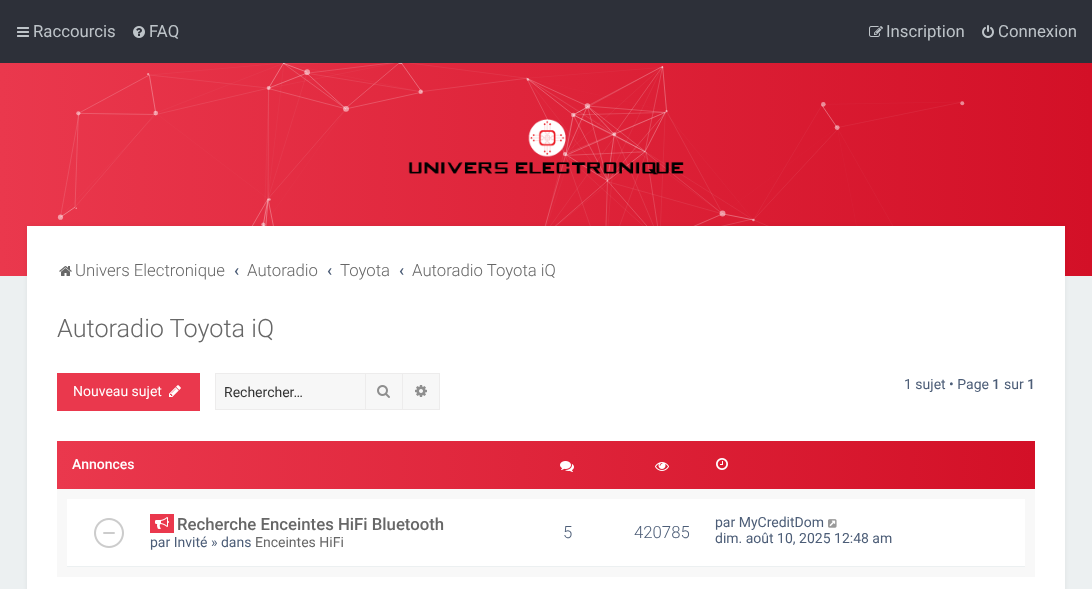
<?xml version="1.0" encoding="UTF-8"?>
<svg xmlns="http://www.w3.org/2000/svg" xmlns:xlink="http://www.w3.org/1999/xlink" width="1092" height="589">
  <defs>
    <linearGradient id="g1" gradientUnits="userSpaceOnUse" x1="0" y1="170" x2="1092" y2="169"><stop offset="0" stop-color="#ea384d" /><stop offset="1" stop-color="#d31027" /></linearGradient>
    <linearGradient id="g2" gradientUnits="userSpaceOnUse" x1="57" y1="465" x2="1035" y2="465"><stop offset="0" stop-color="#ea384d" /><stop offset="1" stop-color="#d31027" /></linearGradient>
  </defs>
  <rect width="100%" height="100%" fill="#ecf0f1" />
  <rect width="1092" height="63" fill="#2d3039" />
  <image x="17" y="27" width="12" height="10" xlink:href="image1.png" />
  <image x="133" y="26" width="12" height="12" xlink:href="image2.png" />
  <image x="869" y="26" width="14" height="11" xlink:href="image3.png" />
  <image x="982" y="25" width="12" height="13" xlink:href="image4.png" />
  <rect y="63" width="1092" height="213" fill="url(#g1)" />
  <image x="57" y="63" width="908" height="163" xlink:href="image5.png" />
  <image x="408" y="119" width="276" height="56" xlink:href="image6.png" />
  <rect x="27" y="226" width="1038" height="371" fill="#000000" fill-opacity="0.05" filter="blur(2.5px)" />
  <rect x="27" y="226" width="1038" height="363" fill="#ffffff" />
  <image x="59" y="266" width="13" height="10" xlink:href="image7.png" />
  <rect x="57" y="373" width="143" height="38" fill="#ea384d" />
  <image x="169" y="385" width="12" height="12" xlink:href="image8.png" />
  <rect x="216" y="374" width="149" height="35" fill="#f7f7f7" />
  <rect x="215" y="373" width="150" height="1" fill="#edecec" />
  <rect x="215" y="409" width="150" height="1" fill="#edecec" />
  <rect x="215" y="373" width="1" height="37" fill="#edecec" />
  <rect x="365.5" y="373.5" width="37" height="36" fill="#f7f7f7" stroke="#edecec" />
  <image x="377" y="385" width="13" height="13" xlink:href="image9.png" />
  <rect x="403" y="374" width="36" height="35" fill="#f7f7f7" />
  <rect x="403" y="373" width="37" height="1" fill="#edecec" />
  <rect x="439" y="373" width="1" height="37" fill="#edecec" />
  <rect x="403" y="409" width="37" height="1" fill="#edecec" />
  <image x="415" y="385" width="12" height="12" xlink:href="image10.png" />
  <rect x="57" y="489" width="978" height="88" fill="#f8f8f8" />
  <rect x="57" y="441" width="978" height="48" fill="url(#g2)" />
  <image x="560" y="461" width="14" height="11" xlink:href="image11.png" />
  <image x="655" y="462" width="14" height="9" xlink:href="image12.png" />
  <image x="716" y="458" width="12" height="12" xlink:href="image13.png" />
  <rect x="67" y="499" width="958" height="67" fill="#ffffff" />
  <rect x="67" y="566" width="958" height="1" fill="#ecf0f1" />
  <image x="94" y="518" width="30" height="30" xlink:href="image14.png" />
  <rect x="150" y="514" width="24" height="19" fill="#ea384d" />
  <image x="155" y="517" width="14" height="12" xlink:href="image15.png" />
  <image x="828" y="519" width="9" height="9" xlink:href="image16.png" />
  <text x="33" y="37" style="font-family: Roboto; font-size: 16.75px; fill: #bec4c9">Raccourcis</text>
  <text x="149" y="37" style="font-family: Roboto; font-size: 16.75px; fill: #bec4c9">FAQ</text>
  <text x="886" y="37" style="font-family: Roboto; font-size: 16.75px; fill: #bec4c9">Inscription</text>
  <text x="998" y="37" style="font-family: Roboto; font-size: 16.75px; fill: #bec4c9">Connexion</text>
  <text x="75" y="276" style="font-family: Roboto; font-size: 16.75px; font-weight: 300; fill: #676767">Univers Electronique</text>
  <text x="234" y="276" style="font-family: Roboto; font-size: 16.75px; font-weight: 500; fill: #4c5d77">‹</text>
  <text x="247" y="276" style="font-family: Roboto; font-size: 16.75px; font-weight: 300; fill: #676767">Autoradio</text>
  <text x="327" y="276" style="font-family: Roboto; font-size: 16.75px; font-weight: 500; fill: #4c5d77">‹</text>
  <text x="340" y="276" style="font-family: Roboto; font-size: 16.75px; font-weight: 300; fill: #676767">Toyota</text>
  <text x="399" y="276" style="font-family: Roboto; font-size: 16.75px; font-weight: 500; fill: #4c5d77">‹</text>
  <text x="412" y="276" style="font-family: Roboto; font-size: 16.75px; font-weight: 300; fill: #676767">Autoradio Toyota iQ</text>
  <text x="57" y="337" style="font-family: Roboto; font-size: 25.25px; font-weight: 300; fill: #676767">Autoradio Toyota iQ</text>
  <text x="73" y="396" style="font-family: Roboto; font-size: 14px; fill: #ffffff">Nouveau sujet</text>
  <text x="224" y="397" style="font-family: Roboto; font-size: 14px; fill: #333333">Rechercher…</text>
  <text x="904" y="389" style="font-family: Roboto; font-size: 14px; fill: #4c5d77">1 sujet • Page</text>
  <text x="992" y="389" style="font-family: Roboto; font-size: 14px; font-weight: 500; fill: #4c5d77">1</text>
  <text x="1004" y="389" style="font-family: Roboto; font-size: 14px; fill: #4c5d77">sur</text>
  <text x="1027" y="389" style="font-family: Roboto; font-size: 14px; font-weight: 500; fill: #4c5d77">1</text>
  <text x="72" y="469" style="font-family: Roboto; font-size: 14px; font-weight: 500; fill: #ffffff">Annonces</text>
  <text x="177" y="530" style="font-family: Roboto; font-size: 16.75px; font-weight: 500; fill: #676767">Recherche Enceintes HiFi Bluetooth</text>
  <text x="150" y="547" style="font-family: Roboto; font-size: 14px; fill: #4c5d77">par Invité » dans</text>
  <text x="255" y="547" style="font-family: Roboto; font-size: 14px; fill: #676767">Enceintes HiFi</text>
  <text x="563" y="538" style="font-family: Roboto; font-size: 16.75px; font-weight: 300; fill: #4c5d77">5</text>
  <text x="634" y="538" style="font-family: Roboto; font-size: 16.75px; font-weight: 300; fill: #4c5d77">420785</text>
  <text x="715" y="527" style="font-family: Roboto; font-size: 14px; fill: #4c5d77">par MyCreditDom</text>
  <text x="715" y="543" style="font-family: Roboto; font-size: 14px; fill: #4c5d77">dim. août 10, 2025 12:48 am</text>
</svg>
